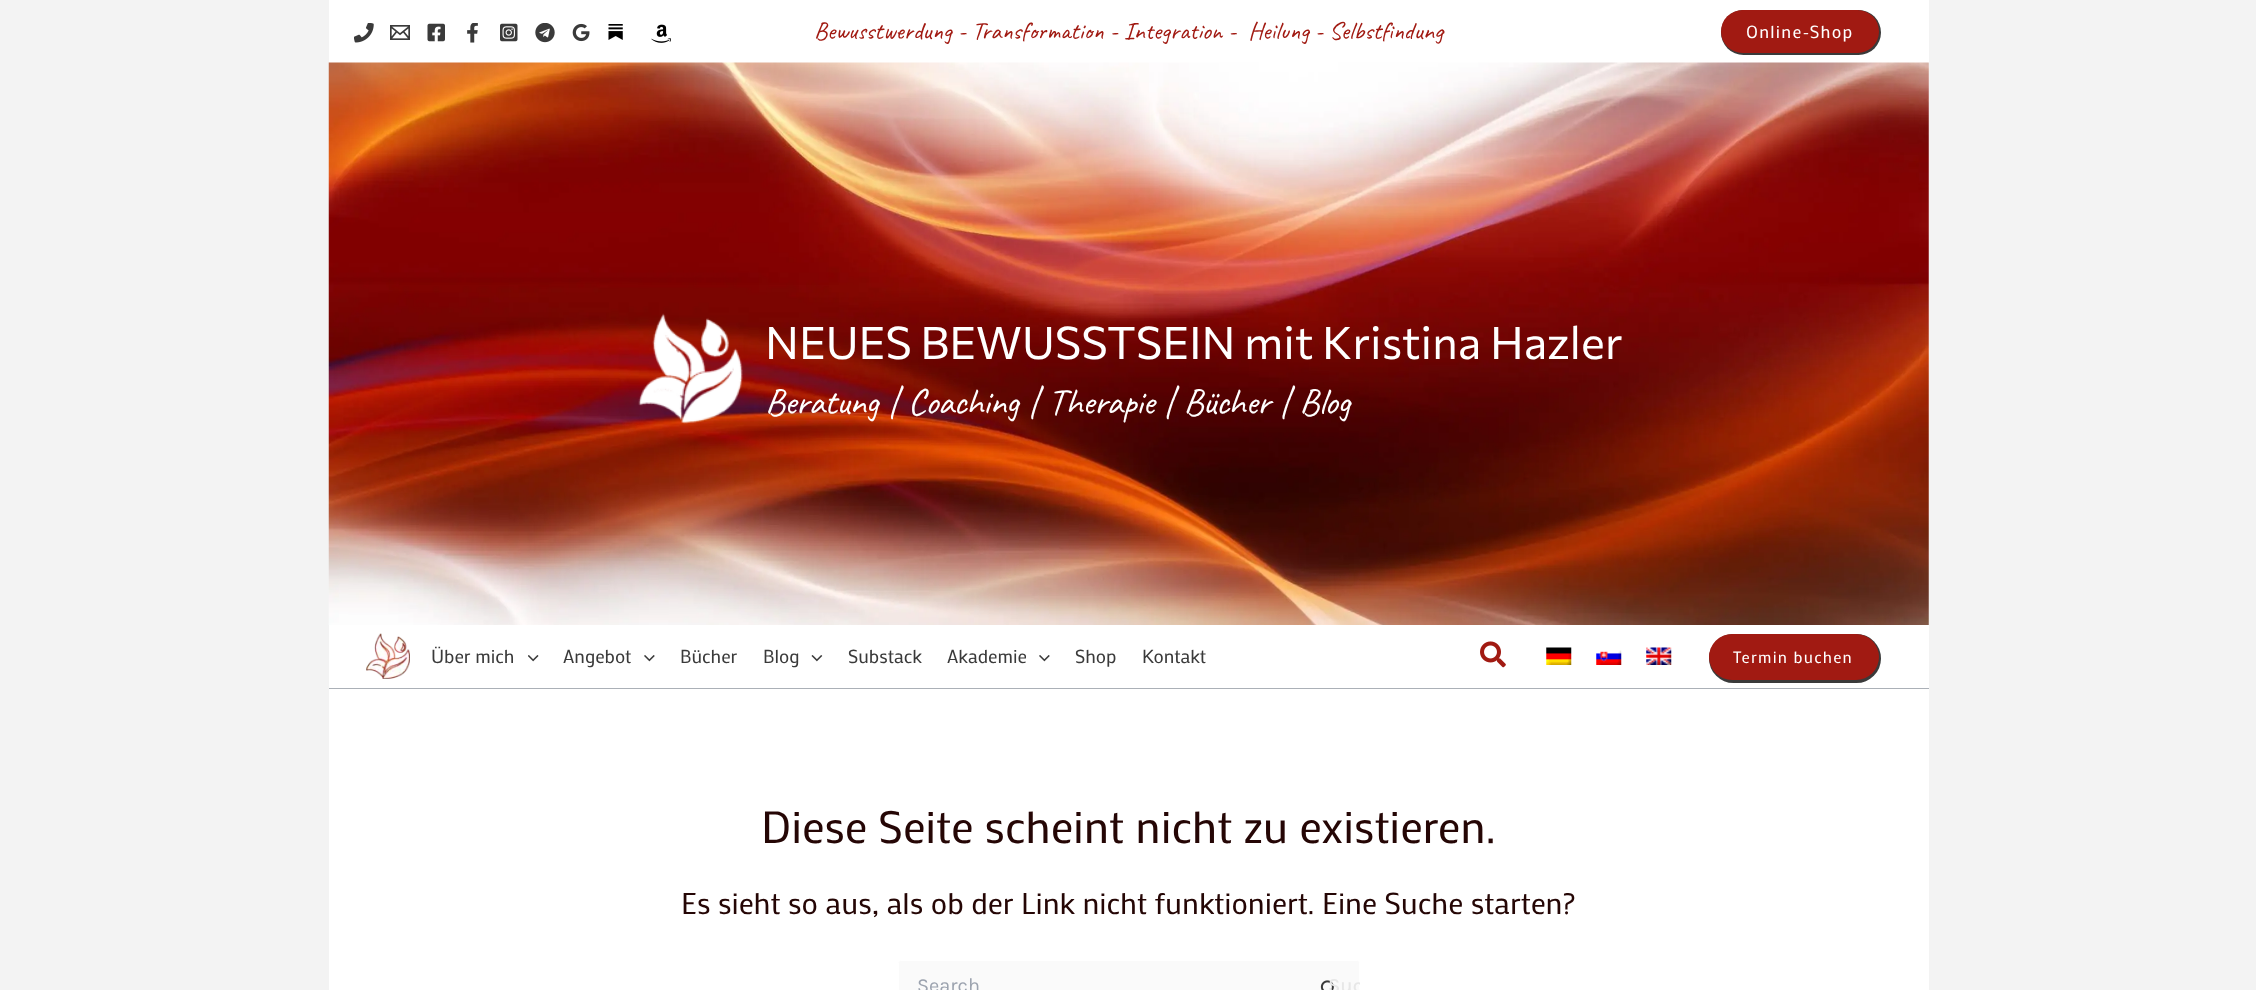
<?xml version="1.0" encoding="UTF-8"?>
<svg xmlns="http://www.w3.org/2000/svg" xmlns:xlink="http://www.w3.org/1999/xlink" width="2256" height="990">
  <defs>
    <clipPath id="clip1"><rect x="1304" y="960" width="56" height="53" rx="2.5" /></clipPath>
  </defs>
  <rect width="100%" height="100%" fill="#f3f3f3" />
  <rect x="329" width="1600" height="63" fill="#ffffff" />
  <image x="354" y="23" width="20" height="20" xlink:href="image1.png" />
  <image x="390" y="25" width="20" height="15" xlink:href="image2.png" />
  <image x="427" y="23" width="18" height="19" xlink:href="image3.png" />
  <image x="467" y="23" width="11" height="20" xlink:href="image4.png" />
  <image x="500" y="23" width="18" height="19" xlink:href="image5.png" />
  <image x="535" y="23" width="20" height="20" xlink:href="image6.png" />
  <image x="572" y="23" width="18" height="19" xlink:href="image7.png" />
  <image x="608" y="24" width="15" height="16" xlink:href="image8.png" />
  <image x="651" y="24" width="20" height="19" xlink:href="image9.png" />
  <rect x="1721" y="10" width="160" height="45" rx="22.5" fill="#3a3a3a" filter="blur(0.5px)" />
  <rect x="1721" y="10" width="158" height="43" rx="21.5" fill="#a11a12" />
  <image x="328" y="62" width="1601" height="563" xlink:href="image10.png" />
  <image x="638" y="313" width="105" height="111" xlink:href="image11.png" />
  <rect x="329" y="625" width="1600" height="63" fill="#ffffff" />
  <rect x="329" y="688" width="1600" height="1" fill="#abb0b7" />
  <image x="366" y="633" width="44" height="46" xlink:href="image12.png" />
  <image x="528" y="655" width="11" height="7" xlink:href="image13.png" />
  <image x="644" y="655" width="11" height="7" xlink:href="image14.png" />
  <image x="811" y="655" width="12" height="7" xlink:href="image15.png" />
  <image x="1039" y="655" width="11" height="7" xlink:href="image14.png" />
  <image x="1480" y="641" width="26" height="27" xlink:href="image16.png" />
  <image x="1546" y="647" width="26" height="18" xlink:href="image17.png" />
  <image x="1596" y="650" width="26" height="15" xlink:href="image18.png" />
  <image x="1646" y="647" width="26" height="18" xlink:href="image19.png" />
  <rect x="1709" y="634" width="172" height="49" rx="24.5" fill="#3a3a3a" filter="blur(0.5px)" />
  <rect x="1709" y="634" width="170" height="46" rx="23" fill="#a11a12" />
  <rect x="329" y="689" width="1600" height="301" fill="#ffffff" />
  <rect x="898.5" y="960.5" width="461" height="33" rx="2" fill="#fafafa" stroke="#ffffff" />
  <image x="1320" y="980" width="14" height="10" xlink:href="image20.png" />
  <text x="814" y="39" style="font-family: Caveat; font-size: 25px; fill: #a11a12" xml:space="preserve">Bewusstwerdung - Transformation - Integration -  Heilung - Selbstfindung</text>
  <text x="1746" y="38" style="font-family: Mako; font-size: 17.5px; letter-spacing: 1.25px; fill: #ffffff">Online-Shop</text>
  <text x="765" y="359" style="font-family: Commissioner; font-size: 45px; font-weight: 100; fill: #ffffff">NEUES BEWUSSTSEIN mit Kristina Hazler</text>
  <text x="765" y="414" word-spacing="0.5" style="font-family: Caveat; font-size: 37.5px; letter-spacing: -0.6px; fill: #ffffff">Beratung | Coaching | Therapie | Bücher | Blog</text>
  <text x="431" y="663" style="font-family: Mako; font-size: 18.75px; fill: #3a3a3a">Über mich</text>
  <text x="563" y="663" style="font-family: Mako; font-size: 18.75px; fill: #3a3a3a">Angebot</text>
  <text x="680" y="663" style="font-family: Mako; font-size: 18.75px; fill: #3a3a3a">Bücher</text>
  <text x="763" y="663" style="font-family: Mako; font-size: 18.75px; fill: #3a3a3a">Blog</text>
  <text x="848" y="663" style="font-family: Mako; font-size: 18.75px; fill: #3a3a3a">Substack</text>
  <text x="947" y="663" style="font-family: Mako; font-size: 18.75px; fill: #3a3a3a">Akademie</text>
  <text x="1075" y="663" style="font-family: Mako; font-size: 18.75px; fill: #3a3a3a">Shop</text>
  <text x="1142" y="663" style="font-family: Mako; font-size: 18.75px; fill: #3a3a3a">Kontakt</text>
  <text x="1733" y="663" style="font-family: Mako; font-size: 16.25px; letter-spacing: 1.25px; fill: #ffffff">Termin buchen</text>
  <text x="761" y="843" style="font-family: Mako; font-size: 45px; fill: #250605">Diese Seite scheint nicht zu existieren.</text>
  <text x="681" y="914" style="font-family: Mako; font-size: 30px; fill: #250605">Es sieht so aus, als ob der Link nicht funktioniert. Eine Suche starten?</text>
  <text x="917" y="992" style="font-family: Karla; font-size: 20px; fill: #9ca3af">Search</text>
  <g clip-path="url(#clip1)">
    <text x="1328" y="992" style="font-family: Karla; font-size: 20px; font-weight: 500; fill: #e7e7e7">Suc</text>
  </g>
</svg>
